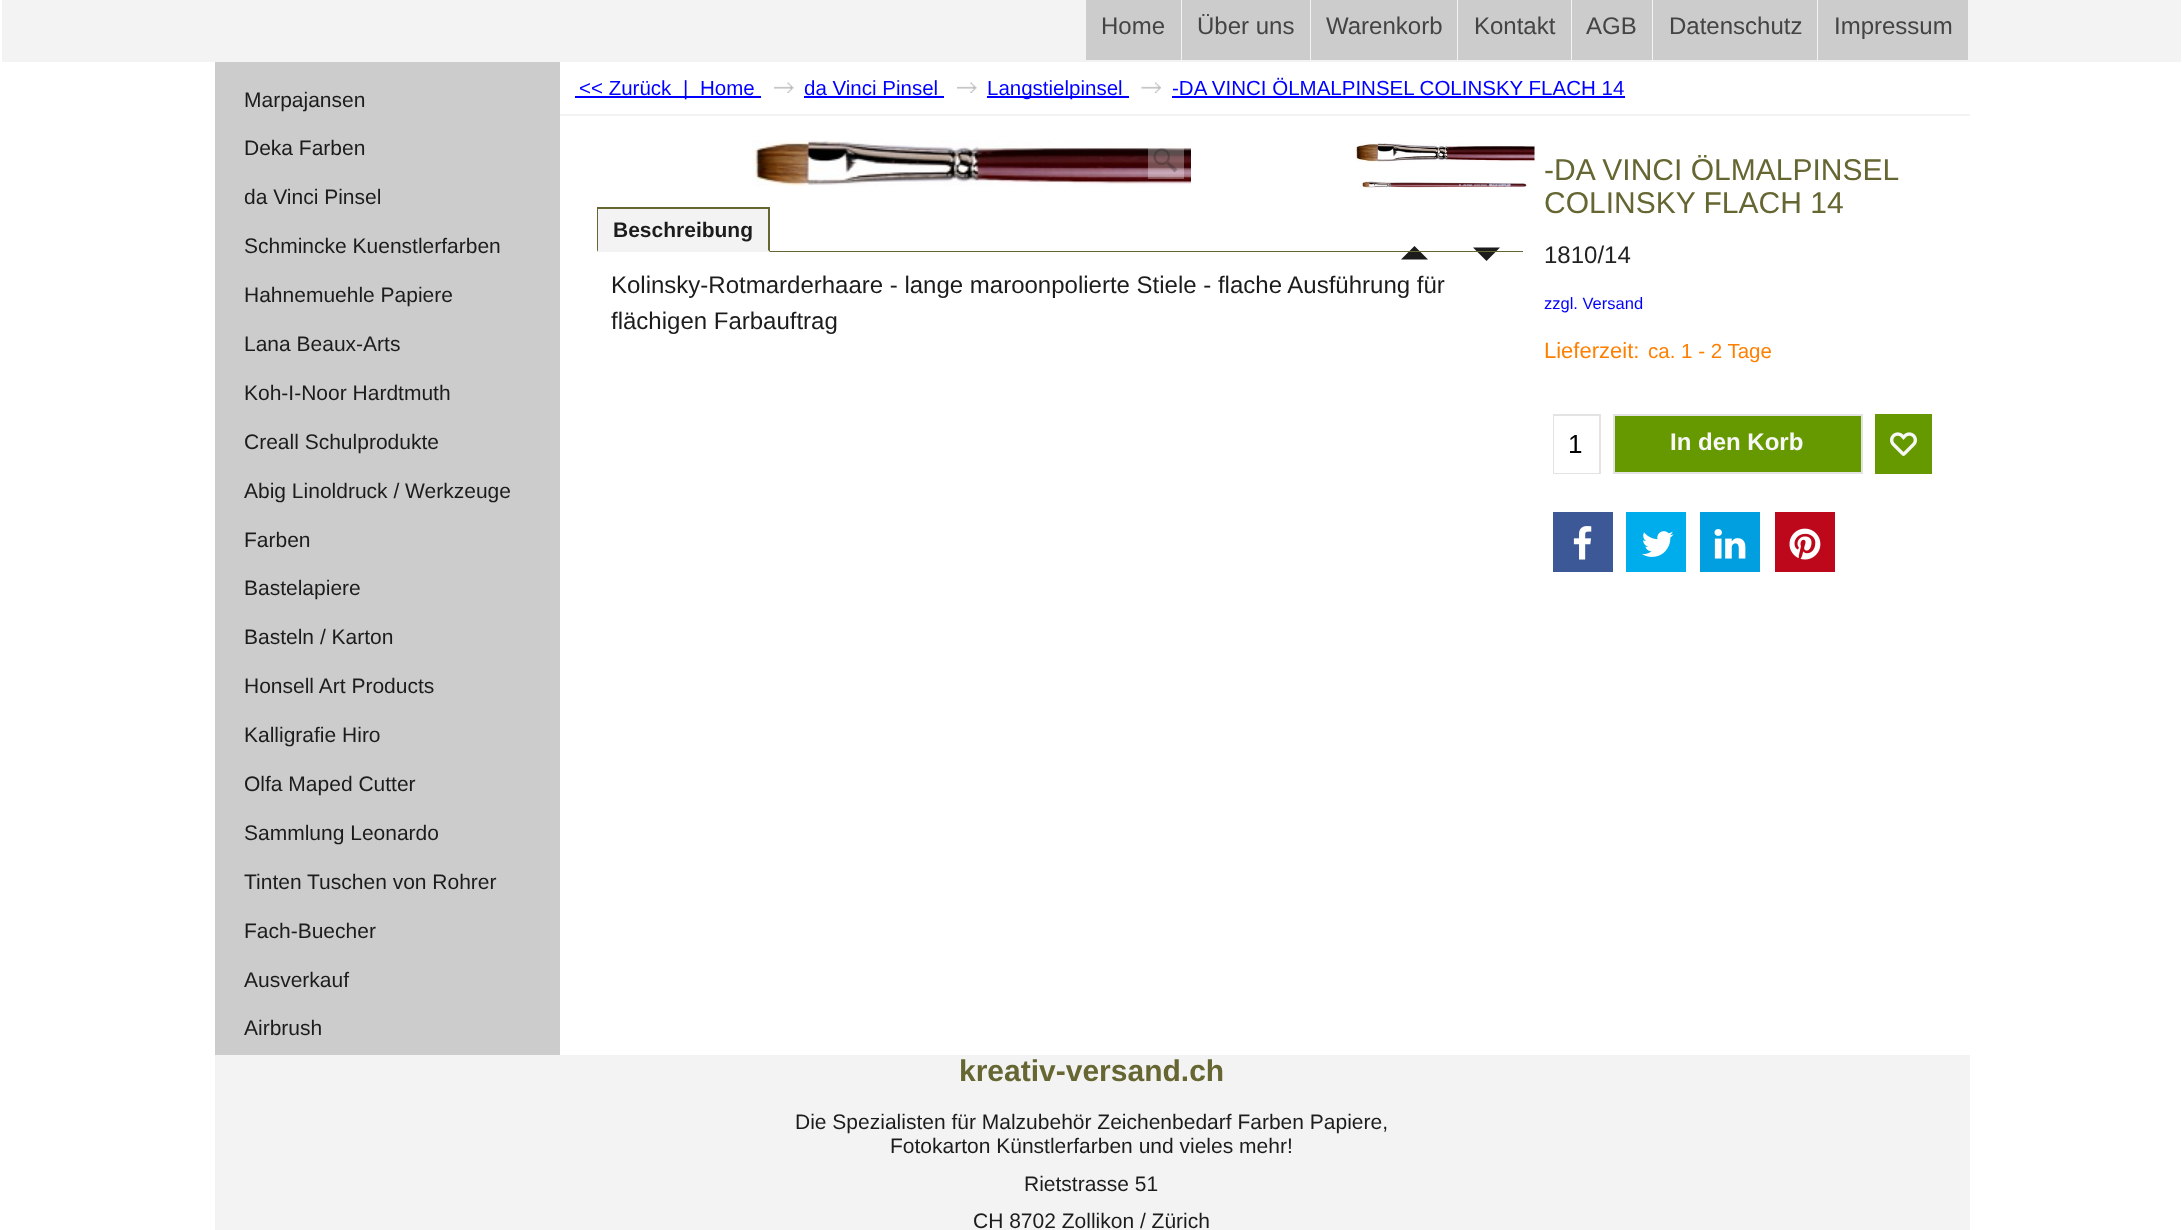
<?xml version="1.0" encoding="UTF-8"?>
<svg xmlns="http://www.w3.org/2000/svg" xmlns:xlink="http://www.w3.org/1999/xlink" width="2182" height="1230">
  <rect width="100%" height="100%" fill="#ffffff" />
  <rect x="2" width="2179" height="62" fill="#f3f3f3" />
  <rect x="1086" width="95" height="60" fill="#cccccc" />
  <rect x="1182" width="128" height="60" fill="#cccccc" />
  <rect x="1311" width="146" height="60" fill="#cccccc" />
  <rect x="1458" width="113" height="60" fill="#cccccc" />
  <rect x="1572" width="80" height="60" fill="#cccccc" />
  <rect x="1653" width="164" height="60" fill="#cccccc" />
  <rect x="1818" width="150" height="60" fill="#cccccc" />
  <rect x="215" y="62" width="345" height="993" fill="#cccccc" />
  <rect x="560" y="114" width="1410" height="2" fill="#f3f3f3" />
  <rect x="575" y="96" width="186" height="2" fill="#0000ff" />
  <image x="774" y="82" width="20" height="11" xlink:href="image1.png" />
  <rect x="804" y="96" width="140" height="2" fill="#0000ff" />
  <image x="957" y="82" width="20" height="11" xlink:href="image1.png" />
  <rect x="987" y="96" width="142" height="2" fill="#0000ff" />
  <image x="1141" y="82" width="20" height="11" xlink:href="image2.png" />
  <rect x="1172" y="96" width="453" height="2" fill="#0000ff" />
  <rect x="597" y="209" width="173" height="43" fill="#f3f3f3" />
  <rect x="597" y="207" width="173" height="2" fill="#666633" />
  <path d="M 770 207 v 45 l -2 -2 v -42 z" fill="#666633" />
  <path d="M 597 252 v -45 l 1 1 v 42 z" fill="#666633" />
  <path d="M 1428 259.5 l -13.5 -13.5 l -13.5 13.5 z" fill="#1c1c1c" />
  <path d="M 1473 247.5 l 13.5 13.5 l 13.5 -13.5 z" fill="#1c1c1c" />
  <rect x="770" y="251" width="753" height="1" fill="#666633" />
  <image x="752" y="140" width="439" height="46" xlink:href="image3.png" />
  <rect x="1148" y="148" width="36" height="31" fill="#ffffff" fill-opacity="0.3" />
  <image x="1153" y="148" width="25" height="25" xlink:href="image4.png" />
  <image x="1355" y="142" width="180" height="20" xlink:href="image5.png" />
  <image x="1359" y="181" width="169" height="7" xlink:href="image6.png" />
  <rect x="1554" y="415" width="46" height="58" fill="none" stroke="#e3e3e3" stroke-width="2" />
  <rect x="1554" y="416" width="45" height="57" fill="#ffffff" />
  <rect x="1614" y="415" width="248" height="58" fill="#669900" stroke="#e3e3e3" stroke-width="2" />
  <rect x="1875" y="414" width="57" height="60" fill="#669900" />
  <image x="1890" y="432" width="27" height="24" xlink:href="image7.png" />
  <rect x="1553" y="512" width="60" height="60" fill="#3c5897" />
  <image x="1573" y="526" width="19" height="34" xlink:href="image8.png" />
  <rect x="1626" y="512" width="60" height="60" fill="#00adec" />
  <image x="1642" y="531" width="32" height="26" xlink:href="image9.png" />
  <rect x="1700" y="512" width="60" height="60" fill="#019fe0" />
  <image x="1714" y="529" width="32" height="30" xlink:href="image10.png" />
  <rect x="1775" y="512" width="60" height="60" fill="#bd081c" />
  <image x="1789" y="528" width="32" height="32" xlink:href="image11.png" />
  <rect x="215" y="1055" width="1755" height="175" fill="#f3f3f3" />
  <text x="1101" y="34" style="font-family: Liberation Sans; font-size: 24px; fill: #444444">Home</text>
  <text x="1197" y="34" style="font-family: Liberation Sans; font-size: 24px; fill: #444444">Über uns</text>
  <text x="1326" y="34" style="font-family: Liberation Sans; font-size: 24px; fill: #444444">Warenkorb</text>
  <text x="1474" y="34" style="font-family: Liberation Sans; font-size: 24px; fill: #444444">Kontakt</text>
  <text x="1586" y="34" style="font-family: Liberation Sans; font-size: 24px; fill: #444444">AGB</text>
  <text x="1669" y="34" style="font-family: Liberation Sans; font-size: 24px; fill: #444444">Datenschutz</text>
  <text x="1834" y="34" style="font-family: Liberation Sans; font-size: 24px; fill: #444444">Impressum</text>
  <text x="244" y="107" style="font-family: Liberation Sans; font-size: 21px; fill: #1c1c1c">Marpajansen</text>
  <text x="244" y="155" style="font-family: Liberation Sans; font-size: 21px; fill: #1c1c1c">Deka Farben</text>
  <text x="244" y="204" style="font-family: Liberation Sans; font-size: 21px; fill: #1c1c1c">da Vinci Pinsel</text>
  <text x="244" y="253" style="font-family: Liberation Sans; font-size: 21px; fill: #1c1c1c">Schmincke Kuenstlerfarben</text>
  <text x="244" y="302" style="font-family: Liberation Sans; font-size: 21px; fill: #1c1c1c">Hahnemuehle Papiere</text>
  <text x="244" y="351" style="font-family: Liberation Sans; font-size: 21px; fill: #1c1c1c">Lana Beaux-Arts</text>
  <text x="244" y="400" style="font-family: Liberation Sans; font-size: 21px; fill: #1c1c1c">Koh-I-Noor Hardtmuth</text>
  <text x="244" y="449" style="font-family: Liberation Sans; font-size: 21px; fill: #1c1c1c">Creall Schulprodukte</text>
  <text x="244" y="498" style="font-family: Liberation Sans; font-size: 21px; fill: #1c1c1c">Abig Linoldruck / Werkzeuge</text>
  <text x="244" y="547" style="font-family: Liberation Sans; font-size: 21px; fill: #1c1c1c">Farben</text>
  <text x="244" y="595" style="font-family: Liberation Sans; font-size: 21px; fill: #1c1c1c">Bastelapiere</text>
  <text x="244" y="644" style="font-family: Liberation Sans; font-size: 21px; fill: #1c1c1c">Basteln / Karton</text>
  <text x="244" y="693" style="font-family: Liberation Sans; font-size: 21px; fill: #1c1c1c">Honsell Art Products</text>
  <text x="244" y="742" style="font-family: Liberation Sans; font-size: 21px; fill: #1c1c1c">Kalligrafie Hiro</text>
  <text x="244" y="791" style="font-family: Liberation Sans; font-size: 21px; fill: #1c1c1c">Olfa Maped Cutter</text>
  <text x="244" y="840" style="font-family: Liberation Sans; font-size: 21px; fill: #1c1c1c">Sammlung Leonardo</text>
  <text x="244" y="889" style="font-family: Liberation Sans; font-size: 21px; fill: #1c1c1c">Tinten Tuschen von Rohrer</text>
  <text x="244" y="938" style="font-family: Liberation Sans; font-size: 21px; fill: #1c1c1c">Fach-Buecher</text>
  <text x="244" y="987" style="font-family: Liberation Sans; font-size: 21px; fill: #1c1c1c">Ausverkauf</text>
  <text x="244" y="1035" style="font-family: Liberation Sans; font-size: 21px; fill: #1c1c1c">Airbrush</text>
  <text x="579" y="95" style="font-family: Liberation Sans; font-size: 20.5px; fill: #0000ff">&lt;&lt; Zurück</text>
  <text x="683" y="95" style="font-family: Liberation Sans; font-size: 20.5px; fill: #0000ff">|</text>
  <text x="700" y="95" style="font-family: Liberation Sans; font-size: 20.5px; fill: #0000ff">Home</text>
  <text x="804" y="95" style="font-family: Liberation Sans; font-size: 20.5px; fill: #0000ff">da Vinci Pinsel</text>
  <text x="987" y="95" style="font-family: Liberation Sans; font-size: 20.5px; fill: #0000ff">Langstielpinsel</text>
  <text x="1172" y="95" style="font-family: Liberation Sans; font-size: 20.5px; fill: #0000ff">-DA VINCI ÖLMALPINSEL COLINSKY FLACH 14</text>
  <text x="613" y="237" style="font-family: Liberation Sans; font-size: 21px; font-weight: bold; fill: #1c1c1c">Beschreibung</text>
  <text x="611" y="293" style="font-family: Liberation Sans; font-size: 24px; fill: #1c1c1c">Kolinsky-Rotmarderhaare - lange maroonpolierte Stiele - flache Ausführung für</text>
  <text x="611" y="329" style="font-family: Liberation Sans; font-size: 24px; fill: #1c1c1c">flächigen Farbauftrag</text>
  <text x="1544" y="180" style="font-family: Liberation Sans; font-size: 30px; fill: #666633">-DA VINCI ÖLMALPINSEL</text>
  <text x="1544" y="213" style="font-family: Liberation Sans; font-size: 30px; fill: #666633">COLINSKY FLACH 14</text>
  <text x="1544" y="263" style="font-family: Liberation Sans; font-size: 24px; fill: #222222">1810/14</text>
  <text x="1544" y="309" style="font-family: Liberation Sans; font-size: 16.5px; fill: #0000ff">zzgl. Versand</text>
  <text x="1544" y="358" style="font-family: Liberation Sans; font-size: 22px; fill: #ff7f00">Lieferzeit:</text>
  <text x="1648" y="358" style="font-family: Liberation Sans; font-size: 20.5px; fill: #ff7f00">ca. 1 - 2 Tage</text>
  <text x="1568" y="453" style="font-family: Liberation Sans; font-size: 26px; fill: #000000">1</text>
  <text x="1670" y="450" style="font-family: Liberation Sans; font-size: 24px; font-weight: bold; fill: #f7f7f7">In den Korb</text>
  <text x="959" y="1081" style="font-family: Liberation Sans; font-size: 30px; font-weight: bold; fill: #666633">kreativ-versand.ch</text>
  <text x="795" y="1129" style="font-family: Liberation Sans; font-size: 21px; fill: #1c1c1c">Die Spezialisten für Malzubehör Zeichenbedarf Farben Papiere,</text>
  <text x="890" y="1153" style="font-family: Liberation Sans; font-size: 21px; fill: #1c1c1c">Fotokarton Künstlerfarben und vieles mehr!</text>
  <text x="1024" y="1191" style="font-family: Liberation Sans; font-size: 21px; fill: #1c1c1c">Rietstrasse 51</text>
  <text x="973" y="1228" style="font-family: Liberation Sans; font-size: 21px; fill: #1c1c1c">CH 8702 Zollikon / Zürich</text>
</svg>
